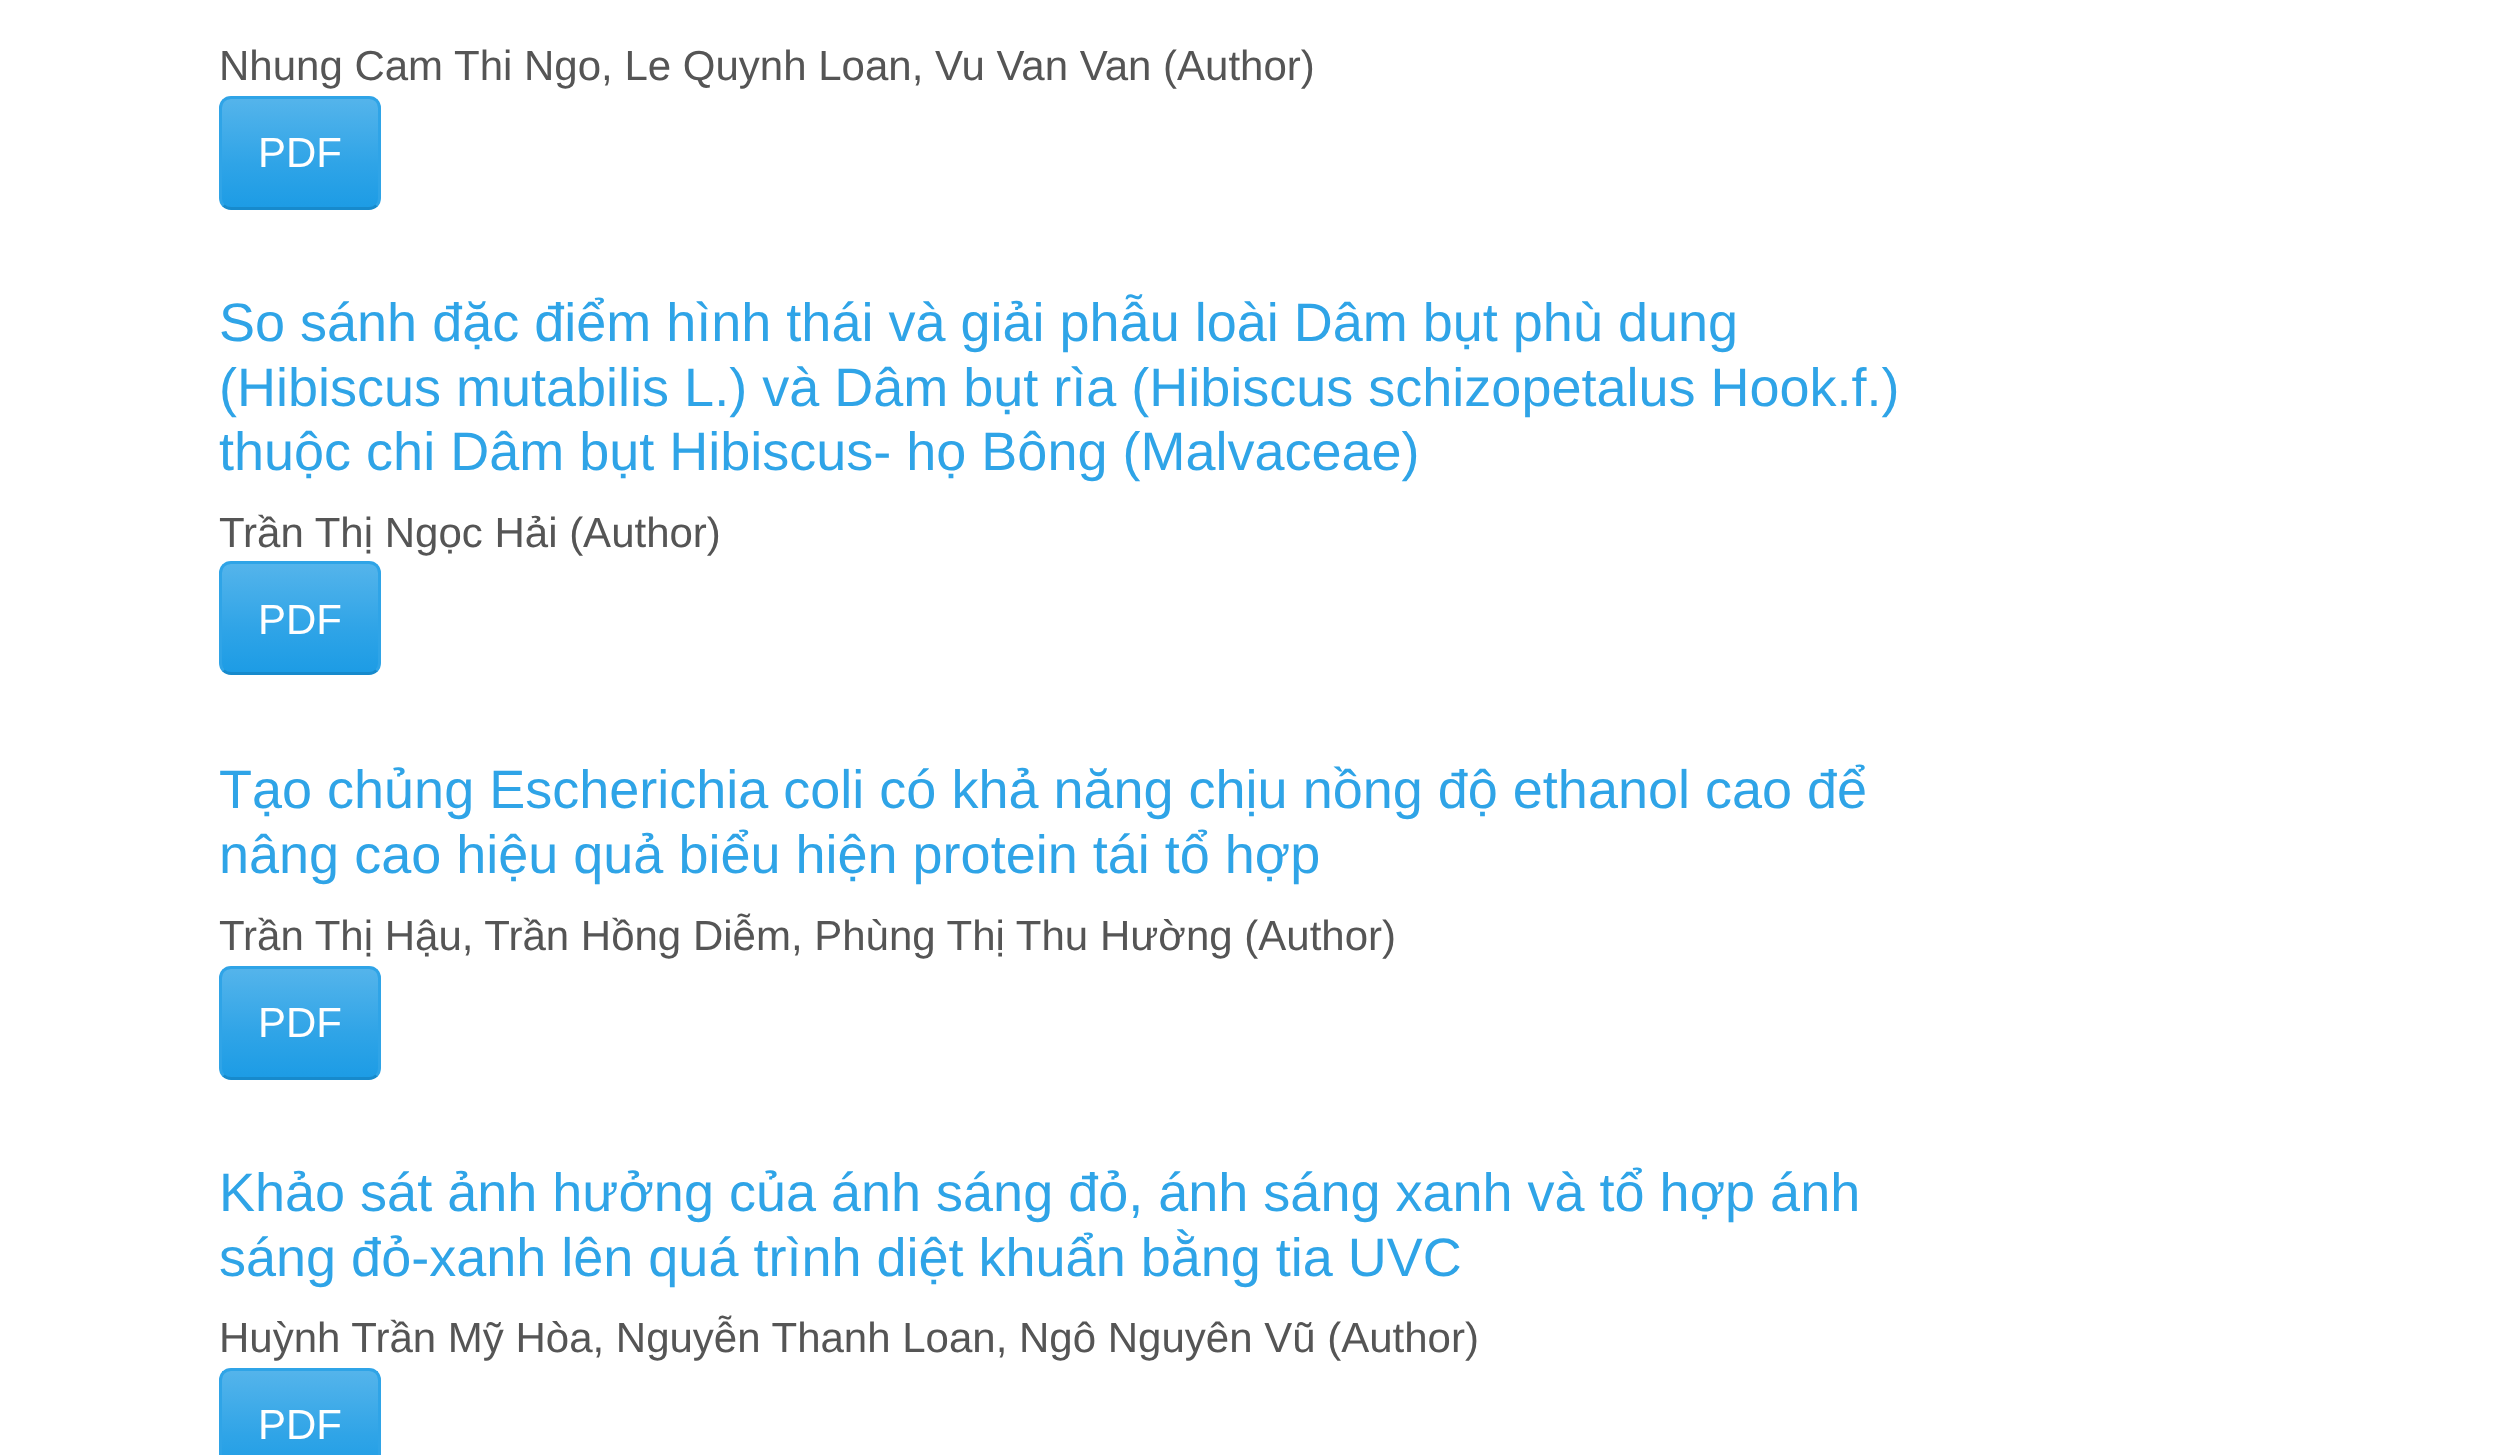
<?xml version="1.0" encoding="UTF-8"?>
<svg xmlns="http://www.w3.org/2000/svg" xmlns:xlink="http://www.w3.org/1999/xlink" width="2506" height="1455">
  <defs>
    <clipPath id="clip1"><rect x="219" y="96" width="162" height="114" rx="12" /></clipPath>
    <linearGradient id="g1" gradientUnits="userSpaceOnUse" x1="300" y1="99" x2="300" y2="207"><stop offset="0" stop-color="#54b4eb" /><stop offset="0.6" stop-color="#2fa4e7" /><stop offset="1" stop-color="#1d9ce5" /></linearGradient>
    <clipPath id="clip2"><rect x="219" y="561" width="162" height="114" rx="12" /></clipPath>
    <linearGradient id="g2" gradientUnits="userSpaceOnUse" x1="300" y1="564" x2="300" y2="672"><stop offset="0" stop-color="#54b4eb" /><stop offset="0.6" stop-color="#2fa4e7" /><stop offset="1" stop-color="#1d9ce5" /></linearGradient>
    <clipPath id="clip3"><rect x="219" y="966" width="162" height="114" rx="12" /></clipPath>
    <linearGradient id="g3" gradientUnits="userSpaceOnUse" x1="300" y1="969" x2="300" y2="1077"><stop offset="0" stop-color="#54b4eb" /><stop offset="0.6" stop-color="#2fa4e7" /><stop offset="1" stop-color="#1d9ce5" /></linearGradient>
    <linearGradient id="g4" gradientUnits="userSpaceOnUse" x1="300" y1="1371" x2="300" y2="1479"><stop offset="0" stop-color="#54b4eb" /><stop offset="0.6" stop-color="#2fa4e7" /><stop offset="1" stop-color="#1d9ce5" /></linearGradient>
  </defs>
  <rect width="100%" height="100%" fill="#ffffff" />
  <g clip-path="url(#clip1)">
    <rect x="222" y="99" width="156" height="108" fill="url(#g1)" />
  </g>
  <path d="M 376.5 205.5 c -2 2 -4.5 3 -7.5 3 h -138 c -3 0 -5.5 -1 -7.5 -3" fill="none" stroke="#178acc" stroke-width="3" />
  <path d="M 223.5 205.5 c -2 -2 -3 -4.5 -3 -7.5 v -90 c 0 -3 1 -5.5 3 -7.5 c 2 -2 4.5 -3 7.5 -3 h 138 c 3 0 5.5 1 7.5 3 c 2 2 3 4.5 3 7.5 v 90 c 0 3 -1 5.5 -3 7.5" fill="none" stroke="#2fa4e7" stroke-width="3" />
  <g clip-path="url(#clip2)">
    <rect x="222" y="564" width="156" height="108" fill="url(#g2)" />
  </g>
  <path d="M 376.5 670.5 c -2 2 -4.5 3 -7.5 3 h -138 c -3 0 -5.5 -1 -7.5 -3" fill="none" stroke="#178acc" stroke-width="3" />
  <path d="M 223.5 670.5 c -2 -2 -3 -4.5 -3 -7.5 v -90 c 0 -3 1 -5.5 3 -7.5 c 2 -2 4.5 -3 7.5 -3 h 138 c 3 0 5.5 1 7.5 3 c 2 2 3 4.5 3 7.5 v 90 c 0 3 -1 5.5 -3 7.5" fill="none" stroke="#2fa4e7" stroke-width="3" />
  <g clip-path="url(#clip3)">
    <rect x="222" y="969" width="156" height="108" fill="url(#g3)" />
  </g>
  <path d="M 376.5 1075.5 c -2 2 -4.5 3 -7.5 3 h -138 c -3 0 -5.5 -1 -7.5 -3" fill="none" stroke="#178acc" stroke-width="3" />
  <path d="M 223.5 1075.5 c -2 -2 -3 -4.5 -3 -7.5 v -90 c 0 -3 1 -5.5 3 -7.5 c 2 -2 4.5 -3 7.5 -3 h 138 c 3 0 5.5 1 7.5 3 c 2 2 3 4.5 3 7.5 v 90 c 0 3 -1 5.5 -3 7.5" fill="none" stroke="#2fa4e7" stroke-width="3" />
  <rect x="222" y="1371" width="156" height="84" fill="url(#g4)" />
  <path d="M 223.5 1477.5 c -2 -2 -3 -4.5 -3 -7.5 v -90 c 0 -3 1 -5.5 3 -7.5 c 2 -2 4.5 -3 7.5 -3 h 138 c 3 0 5.5 1 7.5 3 c 2 2 3 4.5 3 7.5 v 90 c 0 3 -1 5.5 -3 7.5" fill="none" stroke="#2fa4e7" stroke-width="3" />
  <text x="219" y="80" style="font-family: Liberation Sans; font-size: 42px; fill: #555555">Nhung Cam Thi Ngo, Le Quynh Loan, Vu Van Van (Author)</text>
  <text x="258" y="167" style="font-family: Liberation Sans; font-size: 42px; fill: #ffffff">PDF</text>
  <text x="219" y="341" style="font-family: Liberation Sans; font-size: 54px; fill: #2fa4e7">So sánh đặc điểm hình thái và giải phẫu loài Dâm bụt phù dung</text>
  <text x="219" y="406" style="font-family: Liberation Sans; font-size: 54px; fill: #2fa4e7">(Hibiscus mutabilis L.) và Dâm bụt rìa (Hibiscus schizopetalus Hook.f.)</text>
  <text x="219" y="470" style="font-family: Liberation Sans; font-size: 54px; fill: #2fa4e7">thuộc chi Dâm bụt Hibiscus- họ Bông (Malvaceae)</text>
  <text x="219" y="547" style="font-family: Liberation Sans; font-size: 42px; fill: #555555">Trần Thị Ngọc Hải (Author)</text>
  <text x="258" y="634" style="font-family: Liberation Sans; font-size: 42px; fill: #ffffff">PDF</text>
  <text x="219" y="808" style="font-family: Liberation Sans; font-size: 54px; fill: #2fa4e7">Tạo chủng Escherichia coli có khả năng chịu nồng độ ethanol cao để</text>
  <text x="219" y="873" style="font-family: Liberation Sans; font-size: 54px; fill: #2fa4e7">nâng cao hiệu quả biểu hiện protein tái tổ hợp</text>
  <text x="219" y="950" style="font-family: Liberation Sans; font-size: 42px; fill: #555555">Trần Thị Hậu, Trần Hồng Diễm, Phùng Thị Thu Hường (Author)</text>
  <text x="258" y="1037" style="font-family: Liberation Sans; font-size: 42px; fill: #ffffff">PDF</text>
  <text x="219" y="1211" style="font-family: Liberation Sans; font-size: 54px; fill: #2fa4e7">Khảo sát ảnh hưởng của ánh sáng đỏ, ánh sáng xanh và tổ hợp ánh</text>
  <text x="219" y="1276" style="font-family: Liberation Sans; font-size: 54px; fill: #2fa4e7">sáng đỏ-xanh lên quá trình diệt khuẩn bằng tia UVC</text>
  <text x="219" y="1352" style="font-family: Liberation Sans; font-size: 42px; fill: #555555">Huỳnh Trần Mỹ Hòa, Nguyễn Thanh Loan, Ngô Nguyên Vũ (Author)</text>
  <text x="258" y="1439" style="font-family: Liberation Sans; font-size: 42px; fill: #ffffff">PDF</text>
</svg>
